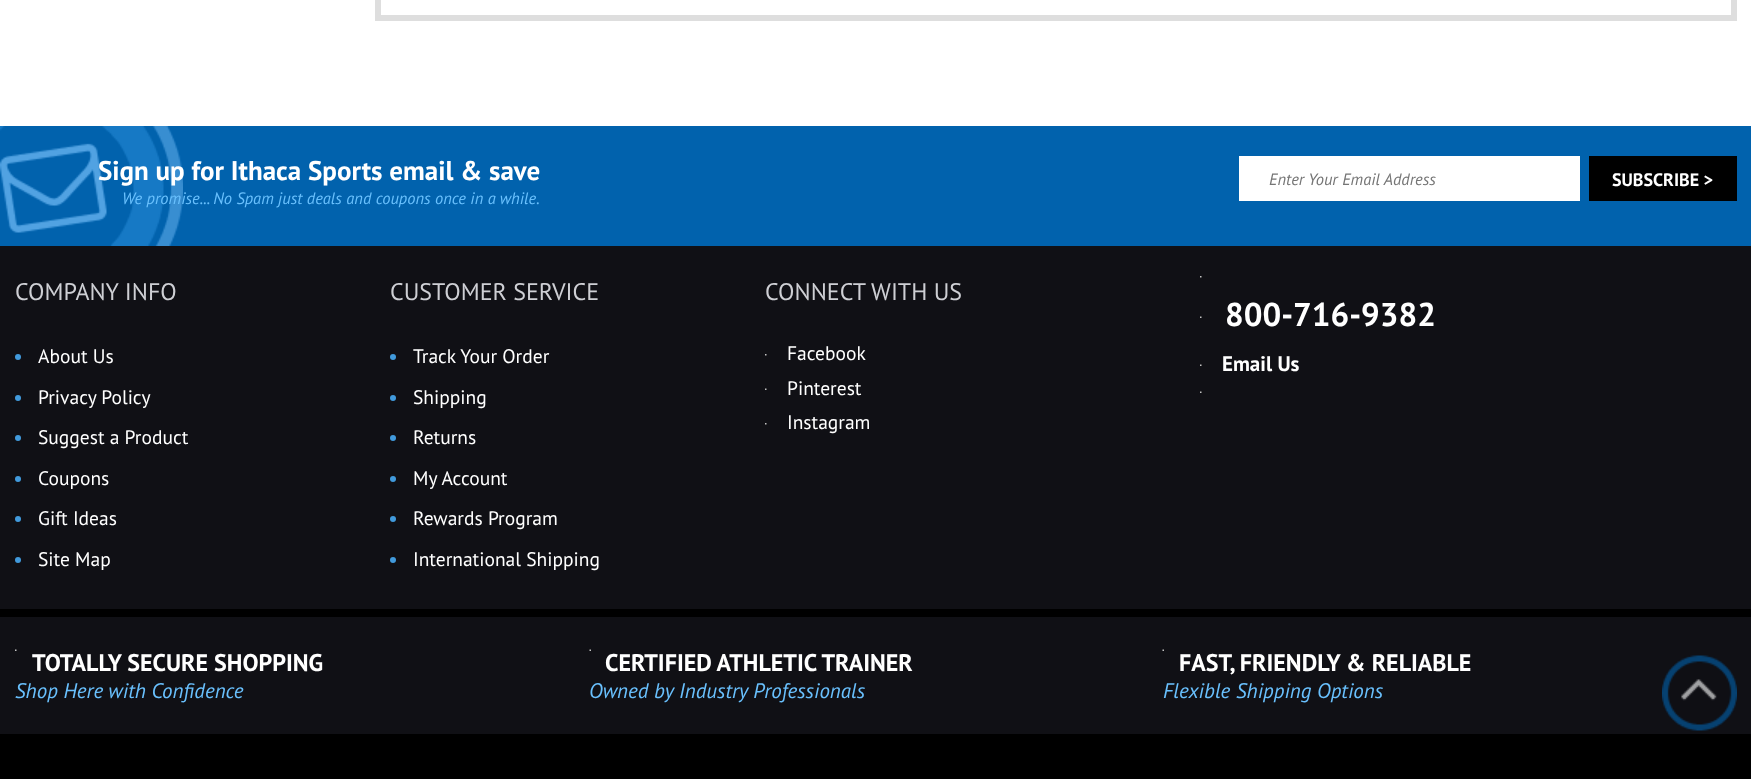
<?xml version="1.0" encoding="UTF-8"?>
<svg xmlns="http://www.w3.org/2000/svg" xmlns:xlink="http://www.w3.org/1999/xlink" width="1751" height="779">
  <rect width="100%" height="100%" fill="#ffffff" />
  <rect x="378" y="-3" width="1356" height="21" fill="none" stroke="#dedede" stroke-width="6" />
  <rect y="246" width="1751" height="488" fill="#101015" />
  <rect x="167" y="126" width="1584" height="120" fill="#0162ad" />
  <image x="0" y="126" width="183" height="120" xlink:href="image1.png" />
  <rect x="1239" y="156" width="341" height="45" fill="#ffffff" />
  <rect x="1589" y="156" width="148" height="45" fill="#000000" />
  <circle cx="18" cy="357" r="3" fill="#419adc" />
  <circle cx="18" cy="398" r="3" fill="#419adc" />
  <circle cx="18" cy="438" r="3" fill="#419adc" />
  <circle cx="18" cy="479" r="3" fill="#419adc" />
  <circle cx="18" cy="519" r="3" fill="#419adc" />
  <circle cx="18" cy="560" r="3" fill="#419adc" />
  <circle cx="393" cy="357" r="3" fill="#419adc" />
  <circle cx="393" cy="398" r="3" fill="#419adc" />
  <circle cx="393" cy="438" r="3" fill="#419adc" />
  <circle cx="393" cy="479" r="3" fill="#419adc" />
  <circle cx="393" cy="519" r="3" fill="#419adc" />
  <circle cx="393" cy="560" r="3" fill="#419adc" />
  <image x="765" y="354" width="2" height="2" xlink:href="image2.png" />
  <image x="765" y="388" width="2" height="2" xlink:href="image3.png" />
  <image x="765" y="423" width="2" height="2" xlink:href="image2.png" />
  <image x="1200" y="276" width="2" height="2" xlink:href="image2.png" />
  <image x="1200" y="316" width="2" height="2" xlink:href="image3.png" />
  <image x="1200" y="364" width="2" height="2" xlink:href="image3.png" />
  <image x="1200" y="391" width="2" height="2" xlink:href="image3.png" />
  <rect y="609" width="1751" height="8" fill="#000000" />
  <image x="15" y="649" width="2" height="2" xlink:href="image3.png" />
  <image x="589" y="649" width="2" height="2" xlink:href="image4.png" />
  <image x="1162" y="649" width="2" height="2" xlink:href="image4.png" />
  <rect y="734" width="1751" height="45" fill="#000000" />
  <image x="1662" y="655" width="75" height="76" xlink:href="image5.png" />
  <text x="98" y="180" style="font-family: PT Sans; font-size: 27px; font-weight: bold; fill: #ffffff">Sign up for Ithaca Sports email &amp; save</text>
  <text x="122" y="204" style="font-family: PT Sans; font-size: 16.5px; font-style: italic; fill: #69c0fd">We promise... No Spam just deals and coupons once in a while.</text>
  <text x="1269" y="185" style="font-family: PT Sans; font-size: 16.5px; font-style: italic; fill: #757575">Enter Your Email Address</text>
  <text x="1612" y="186" style="font-family: PT Sans; font-size: 18px; font-weight: bold; fill: #ffffff">SUBSCRIBE &gt;</text>
  <text x="15" y="300" style="font-family: PT Sans; font-size: 24px; fill: #cecfd4">COMPANY INFO</text>
  <text x="38" y="363" style="font-family: PT Sans; font-size: 19.5px; fill: #ffffff">About Us</text>
  <text x="38" y="404" style="font-family: PT Sans; font-size: 19.5px; fill: #ffffff">Privacy Policy</text>
  <text x="38" y="444" style="font-family: PT Sans; font-size: 19.5px; fill: #ffffff">Suggest a Product</text>
  <text x="38" y="485" style="font-family: PT Sans; font-size: 19.5px; fill: #ffffff">Coupons</text>
  <text x="38" y="525" style="font-family: PT Sans; font-size: 19.5px; fill: #ffffff">Gift Ideas</text>
  <text x="38" y="566" style="font-family: PT Sans; font-size: 19.5px; fill: #ffffff">Site Map</text>
  <text x="390" y="300" style="font-family: PT Sans; font-size: 24px; fill: #cecfd4">CUSTOMER SERVICE</text>
  <text x="413" y="363" style="font-family: PT Sans; font-size: 19.5px; fill: #ffffff">Track Your Order</text>
  <text x="413" y="404" style="font-family: PT Sans; font-size: 19.5px; fill: #ffffff">Shipping</text>
  <text x="413" y="444" style="font-family: PT Sans; font-size: 19.5px; fill: #ffffff">Returns</text>
  <text x="413" y="485" style="font-family: PT Sans; font-size: 19.5px; fill: #ffffff">My Account</text>
  <text x="413" y="525" style="font-family: PT Sans; font-size: 19.5px; fill: #ffffff">Rewards Program</text>
  <text x="413" y="566" style="font-family: PT Sans; font-size: 19.5px; fill: #ffffff">International Shipping</text>
  <text x="765" y="300" style="font-family: PT Sans; font-size: 24px; fill: #cecfd4">CONNECT WITH US</text>
  <text x="787" y="360" style="font-family: PT Sans; font-size: 19.5px; fill: #ffffff">Facebook</text>
  <text x="787" y="395" style="font-family: PT Sans; font-size: 19.5px; fill: #ffffff">Pinterest</text>
  <text x="787" y="429" style="font-family: PT Sans; font-size: 19.5px; fill: #ffffff">Instagram</text>
  <text x="1225" y="326" style="font-family: PT Sans; font-size: 33px; font-weight: bold; fill: #ffffff">800-716-9382</text>
  <text x="1222" y="371" style="font-family: PT Sans; font-size: 21px; font-weight: bold; fill: #ffffff">Email Us</text>
  <text x="32" y="671" style="font-family: PT Sans; font-size: 24px; font-weight: bold; fill: #ffffff">TOTALLY SECURE SHOPPING</text>
  <text x="15" y="698" style="font-family: PT Sans; font-size: 21px; font-style: italic; fill: #69c0fd">Shop Here with Confidence</text>
  <text x="605" y="671" style="font-family: PT Sans; font-size: 24px; font-weight: bold; fill: #ffffff">CERTIFIED ATHLETIC TRAINER</text>
  <text x="589" y="698" style="font-family: PT Sans; font-size: 21px; font-style: italic; fill: #69c0fd">Owned by Industry Professionals</text>
  <text x="1179" y="671" style="font-family: PT Sans; font-size: 24px; font-weight: bold; fill: #ffffff">FAST, FRIENDLY &amp; RELIABLE</text>
  <text x="1163" y="698" style="font-family: PT Sans; font-size: 21px; font-style: italic; fill: #69c0fd">Flexible Shipping Options</text>
</svg>
